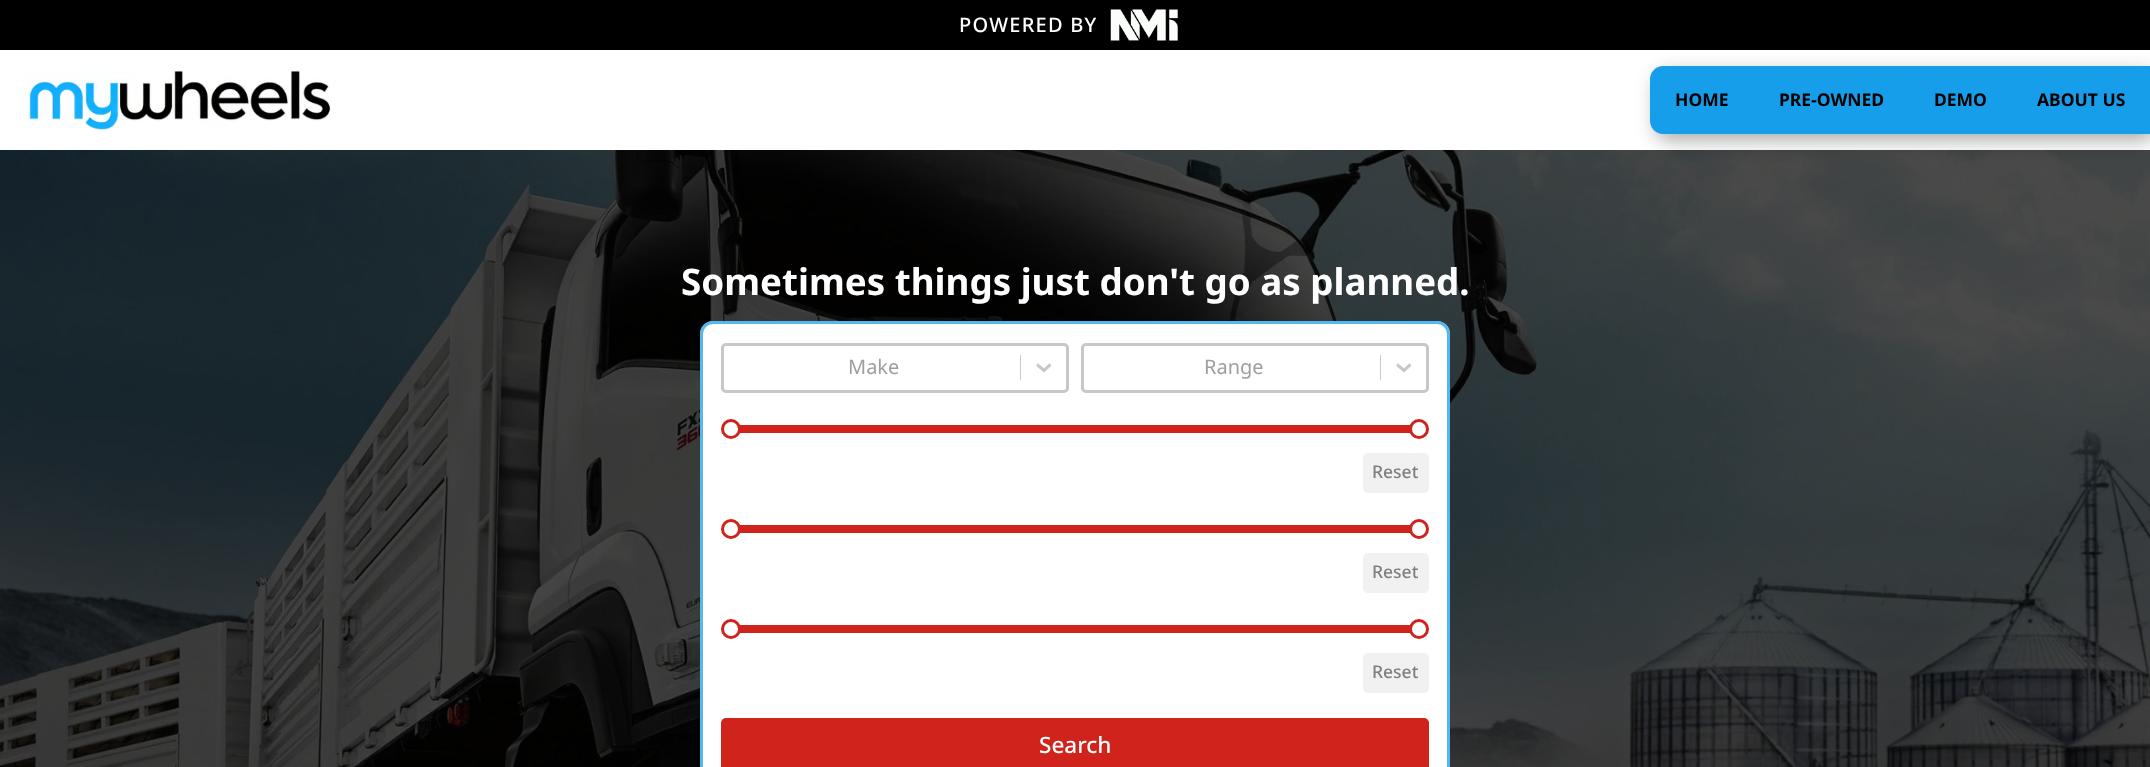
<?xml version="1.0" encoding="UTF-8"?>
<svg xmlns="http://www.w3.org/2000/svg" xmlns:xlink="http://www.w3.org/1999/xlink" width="2150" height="767">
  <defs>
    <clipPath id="clip1"><rect x="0" y="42" width="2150" height="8" /></clipPath>
  </defs>
  <rect width="100%" height="100%" fill="#ffffff" />
  <rect width="2150" height="50" fill="#000000" />
  <g clip-path="url(#clip1)">
    <rect y="50" width="2150" height="100" fill="#000000" fill-opacity="0.2" filter="blur(6px)" />
  </g>
  <image x="1110" y="9" width="68" height="32" xlink:href="image1.png" />
  <image x="25" y="70" width="306" height="60" xlink:href="image2.png" />
  <image x="0" y="150" width="2150" height="617" xlink:href="image3.png" />
  <rect x="1656" y="73" width="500" height="67" rx="13" fill="#000000" fill-opacity="0.34" filter="blur(9.5px)" />
  <path d="M 1663 66 h 91 v 68 h -91 c -7 0 -13 -6 -13 -13 v -42 c 0 -7 6 -13 13 -13 z" fill="#169eea" />
  <rect x="1754" y="66" width="396" height="68" fill="#169eea" />
  <rect x="700" y="321" width="750" height="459" rx="13" fill="#ffffff" />
  <rect x="701.5" y="322.5" width="747" height="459" rx="11.5" fill="none" stroke="#139de9" stroke-opacity="0.73" stroke-width="3" />
  <rect x="722.5" y="344.5" width="345" height="47" rx="3.5" fill="none" stroke="#c8c8c8" stroke-width="3" />
  <rect x="1020" y="355" width="1" height="25" fill="#c8c8c8" />
  <path d="M 1044 370.5 l -7 -6 l 7 6 l 6.5 -6 z" fill="none" stroke="#c8c8c8" stroke-width="3.1" />
  <rect x="1082.5" y="344.5" width="345" height="47" rx="3.5" fill="none" stroke="#c8c8c8" stroke-width="3" />
  <rect x="1380" y="355" width="1" height="25" fill="#c8c8c8" />
  <path d="M 1404 370.5 l -7 -6 l 7 6 l 6.5 -6 z" fill="none" stroke="#c8c8c8" stroke-width="3.1" />
  <rect x="740" y="425" width="670" height="8" fill="#d0231b" />
  <circle cx="731" cy="429" r="8.5" fill="#ffffff" stroke="#d0231b" stroke-width="3" />
  <circle cx="1419" cy="429" r="8.5" fill="#ffffff" stroke="#d0231b" stroke-width="3" />
  <rect x="1363" y="453" width="66" height="40" rx="5" fill="#f1f1f1" />
  <rect x="740" y="525" width="670" height="8" fill="#d0231b" />
  <circle cx="731" cy="529" r="8.5" fill="#ffffff" stroke="#d0231b" stroke-width="3" />
  <circle cx="1419" cy="529" r="8.5" fill="#ffffff" stroke="#d0231b" stroke-width="3" />
  <rect x="1363" y="553" width="66" height="40" rx="5" fill="#f1f1f1" />
  <rect x="740" y="625" width="670" height="8" fill="#d0231b" />
  <circle cx="731" cy="629" r="8.5" fill="#ffffff" stroke="#d0231b" stroke-width="3" />
  <circle cx="1419" cy="629" r="8.5" fill="#ffffff" stroke="#d0231b" stroke-width="3" />
  <rect x="1363" y="653" width="66" height="40" rx="5" fill="#f1f1f1" />
  <rect x="721" y="718" width="708" height="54" rx="5" fill="#d0231b" />
  <text x="959" y="32" style="font-family: Noto Sans; font-size: 20px; font-weight: 500; letter-spacing: 1.25px; fill: #ffffff">POWERED BY</text>
  <text x="1675" y="106" style="font-family: Noto Sans; font-size: 17.5px; font-weight: bold; fill: #000000">HOME</text>
  <text x="1779" y="106" style="font-family: Noto Sans; font-size: 17.5px; font-weight: bold; fill: #000000">PRE-OWNED</text>
  <text x="1934" y="106" style="font-family: Noto Sans; font-size: 17.5px; font-weight: bold; fill: #000000">DEMO</text>
  <text x="2037" y="106" style="font-family: Noto Sans; font-size: 17.5px; font-weight: bold; fill: #000000">ABOUT US</text>
  <text x="681" y="295" style="font-family: Noto Sans; font-size: 36.75px; font-weight: bold; fill: #ffffff">Sometimes things just don't go as planned.</text>
  <text x="848" y="374" style="font-family: Noto Sans; font-size: 20px; fill: #9e9e9e">Make</text>
  <text x="1204" y="374" style="font-family: Noto Sans; font-size: 20px; fill: #9e9e9e">Range</text>
  <text x="1372" y="478" style="font-family: Noto Sans; font-size: 17.5px; font-weight: 500; fill: #7f7f7f">Reset</text>
  <text x="1372" y="578" style="font-family: Noto Sans; font-size: 17.5px; font-weight: 500; fill: #7f7f7f">Reset</text>
  <text x="1372" y="678" style="font-family: Noto Sans; font-size: 17.5px; font-weight: 500; fill: #7f7f7f">Reset</text>
  <text x="1039" y="753" style="font-family: Noto Sans; font-size: 22.5px; font-weight: 500; fill: #ffffff">Search</text>
</svg>
